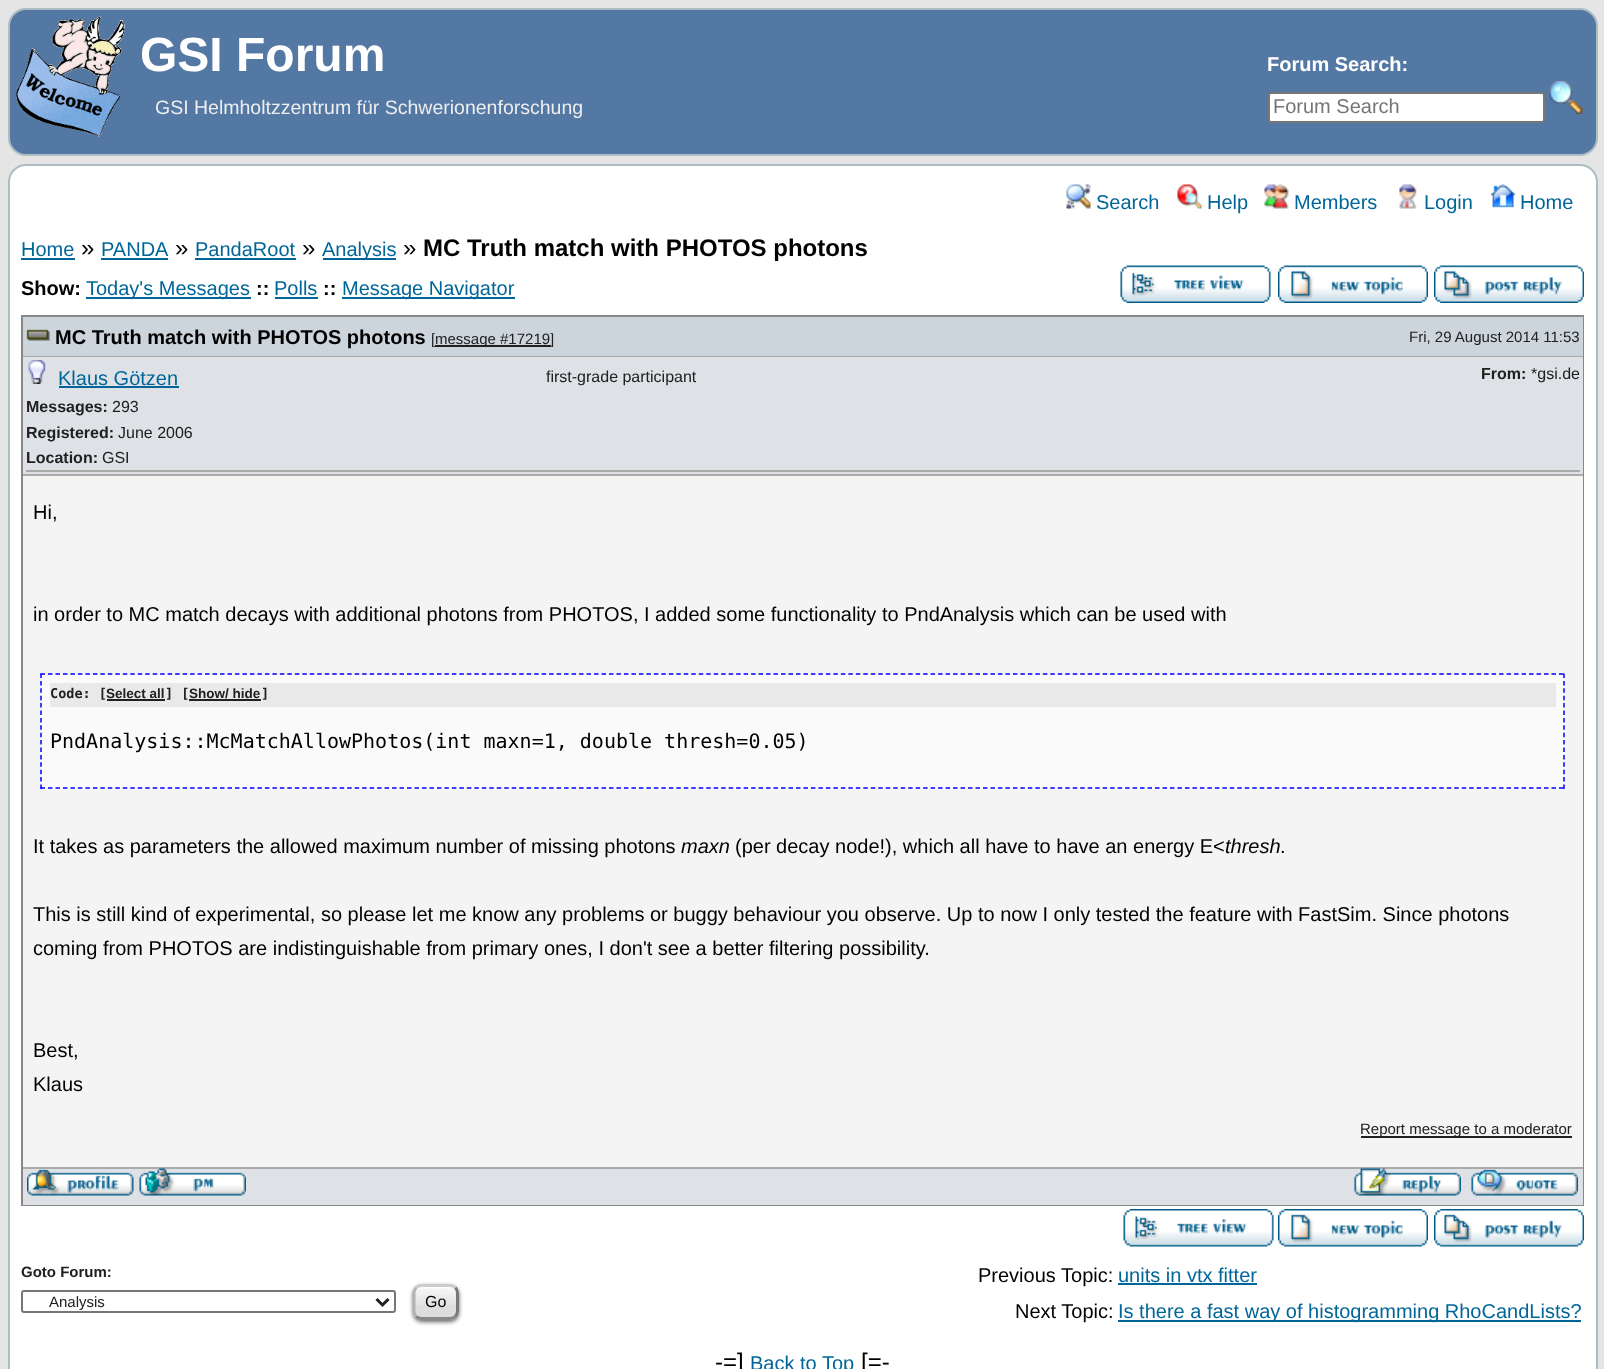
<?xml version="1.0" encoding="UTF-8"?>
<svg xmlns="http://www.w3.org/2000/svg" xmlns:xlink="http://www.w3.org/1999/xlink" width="1604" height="1369">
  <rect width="100%" height="100%" fill="#e5e5e5" />
  <rect x="9" y="9" width="1588" height="146" rx="17" fill="#5478a4" stroke="#aebdc4" stroke-width="2" />
  <image x="16" y="16" width="109" height="121" xlink:href="image1.png" />
  <rect x="1269" y="93" width="275" height="29" rx="2" fill="#ffffff" stroke="#767676" stroke-width="2" />
  <image x="1549" y="81" width="34" height="33" xlink:href="image2.png" />
  <rect x="9" y="165" width="1588" height="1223" rx="17" fill="#ffffff" stroke="#aebdc4" stroke-width="2" />
  <image x="1066" y="184" width="25" height="25" xlink:href="image3.png" />
  <image x="1177" y="184" width="25" height="25" xlink:href="image4.png" />
  <image x="1264" y="184" width="25" height="25" xlink:href="image5.png" />
  <image x="1399" y="184" width="18" height="25" xlink:href="image6.png" />
  <image x="1491" y="184" width="24" height="24" xlink:href="image7.png" />
  <rect x="21" y="258" width="54" height="2" fill="#006699" />
  <rect x="101" y="258" width="67" height="2" fill="#006699" />
  <rect x="195" y="258" width="101" height="2" fill="#006699" />
  <rect x="323" y="258" width="73" height="2" fill="#006699" />
  <rect x="86" y="297" width="165" height="2" fill="#006699" />
  <rect x="275" y="297" width="43" height="2" fill="#006699" />
  <rect x="342" y="297" width="173" height="2" fill="#006699" />
  <image x="1120" y="265" width="151" height="38" xlink:href="image8.png" />
  <image x="1278" y="265" width="150" height="38" xlink:href="image9.png" />
  <image x="1434" y="265" width="150" height="38" xlink:href="image10.png" />
  <rect x="22" y="316" width="1561" height="889" fill="none" stroke="#888888" stroke-width="2" />
  <rect x="23" y="317" width="1560" height="39" fill="#ccd4dc" />
  <rect x="23" y="356" width="1560" height="1" fill="#aaaaaa" />
  <image x="26" y="329" width="24" height="12" xlink:href="image11.png" />
  <rect x="435" y="345" width="116" height="2" fill="#202020" />
  <rect x="23" y="357" width="1560" height="117" fill="#dee2e6" />
  <rect x="23" y="474" width="1560" height="2" fill="#aaaaaa" />
  <rect x="26" y="470" width="1554" height="2" fill="#aaaaaa" />
  <image x="28" y="360" width="18" height="24" xlink:href="image12.png" />
  <rect x="59" y="386" width="120" height="2" fill="#006699" />
  <rect x="23" y="476" width="1560" height="691" fill="#f4f4f4" />
  <rect x="23" y="1167" width="1560" height="2" fill="#aaaaaa" />
  <rect x="41" y="674" width="1524" height="115" fill="#fafafa" />
  <path d="M 40.5 674 h 1524" fill="none" stroke="#0000ff" stroke-width="1.5" stroke-dasharray="4.5 2.98" />
  <path d="M 1564 673.5 v 115.5" fill="none" stroke="#0000ff" stroke-width="1.5" stroke-dasharray="4.5 2.9" />
  <path d="M 40.5 788 h 1524" fill="none" stroke="#0000ff" stroke-width="1.5" stroke-dasharray="4.5 2.98" />
  <path d="M 41 673.5 v 115.5" fill="none" stroke="#0000ff" stroke-width="1.5" stroke-dasharray="4.5 2.9" />
  <rect x="50" y="683" width="1506" height="24" fill="#e9e9e9" />
  <rect x="107" y="699" width="58" height="2" fill="#202020" />
  <rect x="189" y="699" width="72" height="2" fill="#202020" />
  <rect x="1361" y="1136" width="211" height="2" fill="#202020" />
  <rect x="23" y="1169" width="1560" height="36" fill="#dee2e6" />
  <image x="27" y="1169" width="107" height="27" xlink:href="image13.png" />
  <image x="139" y="1168" width="107" height="28" xlink:href="image14.png" />
  <image x="1354" y="1168" width="107" height="28" xlink:href="image15.png" />
  <image x="1471" y="1169" width="107" height="27" xlink:href="image16.png" />
  <image x="1123" y="1209" width="151" height="38" xlink:href="image17.png" />
  <image x="1278" y="1209" width="150" height="38" xlink:href="image18.png" />
  <image x="1434" y="1209" width="150" height="38" xlink:href="image19.png" />
  <rect x="1118" y="1283" width="139" height="2" fill="#006699" />
  <rect x="1118" y="1320" width="463" height="2" fill="#006699" />
  <rect x="22" y="1291" width="373" height="21" rx="2" fill="none" stroke="#767676" stroke-width="2" />
  <path d="M 376.5 1299 l 6 6 l 6 -6" fill="none" stroke="#202020" stroke-width="3" />
  <rect x="413" y="1286" width="46" height="36" rx="9" fill="#000000" fill-opacity="0.6" filter="blur(2px)" />
  <rect x="413" y="1284" width="46" height="36" rx="9" fill="#dddddd" />
  <image x="413" y="1287" width="46" height="18" xlink:href="image20.png" />
  <path d="M 416 1287.5 c 1.5 -1 3.5 -2 5.5 -2 h 28.5 c 2 0 4 1 5.5 2" fill="none" stroke="#cccccc" stroke-width="3" />
  <path d="M 455.5 1287.5 c 1 1.5 2 3.5 2 5.5 v 18 c 0 2 -1 4 -2 5.5" fill="none" stroke="#787778" stroke-width="3" />
  <path d="M 455.5 1316.5 c -1.5 1 -3.5 2 -5.5 2 h -28.5 c -2 0 -4 -1 -5.5 -2" fill="none" stroke="#888888" stroke-width="3" />
  <path d="M 416 1316.5 c -1 -1.5 -2 -3.5 -2 -5.5 v -18 c 0 -2 1 -4 2 -5.5" fill="none" stroke="#b4b2b4" stroke-width="3" />
  <text x="140" y="71" style="font-family: Liberation Sans; font-size: 48px; font-weight: bold; fill: #ffffff">GSI Forum</text>
  <text x="1267" y="71" style="font-family: Liberation Sans; font-size: 20px; font-weight: bold; fill: #ffffff">Forum Search:</text>
  <text x="1273" y="113" style="font-family: Liberation Sans; font-size: 20px; fill: #757575">Forum Search</text>
  <text x="155" y="114" style="font-family: Liberation Sans; font-size: 19.5px; fill: #eeeeee">GSI Helmholtzzentrum für Schwerionenforschung</text>
  <text x="1096" y="209" style="font-family: Liberation Sans; font-size: 20px; fill: #006699">Search</text>
  <text x="1207" y="209" style="font-family: Liberation Sans; font-size: 20px; fill: #006699">Help</text>
  <text x="1294" y="209" style="font-family: Liberation Sans; font-size: 20px; fill: #006699">Members</text>
  <text x="1424" y="209" style="font-family: Liberation Sans; font-size: 20px; fill: #006699">Login</text>
  <text x="1520" y="209" style="font-family: Liberation Sans; font-size: 20px; fill: #006699">Home</text>
  <text x="21" y="256" style="font-family: Liberation Sans; font-size: 20px; fill: #006699">Home</text>
  <text x="81" y="256" style="font-family: Liberation Sans; font-size: 24px; fill: #000000">»</text>
  <text x="101" y="256" style="font-family: Liberation Sans; font-size: 20px; fill: #006699">PANDA</text>
  <text x="175" y="256" style="font-family: Liberation Sans; font-size: 24px; fill: #000000">»</text>
  <text x="195" y="256" style="font-family: Liberation Sans; font-size: 20px; fill: #006699">PandaRoot</text>
  <text x="302" y="256" style="font-family: Liberation Sans; font-size: 24px; fill: #000000">»</text>
  <text x="322" y="256" style="font-family: Liberation Sans; font-size: 20px; fill: #006699">Analysis</text>
  <text x="403" y="256" style="font-family: Liberation Sans; font-size: 24px; fill: #000000">»</text>
  <text x="423" y="256" style="font-family: Liberation Sans; font-size: 24px; font-weight: bold; fill: #000000">MC Truth match with PHOTOS photons</text>
  <text x="21" y="295" style="font-family: Liberation Sans; font-size: 20px; font-weight: bold; fill: #000000">Show:</text>
  <text x="86" y="295" style="font-family: Liberation Sans; font-size: 20px; fill: #006699">Today's Messages</text>
  <text x="256" y="295" style="font-family: Liberation Sans; font-size: 20px; font-weight: bold; fill: #000000">::</text>
  <text x="274" y="295" style="font-family: Liberation Sans; font-size: 20px; fill: #006699">Polls</text>
  <text x="323" y="295" style="font-family: Liberation Sans; font-size: 20px; font-weight: bold; fill: #000000">::</text>
  <text x="342" y="295" style="font-family: Liberation Sans; font-size: 20px; fill: #006699">Message Navigator</text>
  <text x="55" y="344" style="font-family: Liberation Sans; font-size: 20px; font-weight: bold; fill: #000000">MC Truth match with PHOTOS photons</text>
  <text x="431" y="344" style="font-family: Liberation Sans; font-size: 15px; fill: #202020">[</text>
  <text x="435" y="344" style="font-family: Liberation Sans; font-size: 15px; fill: #202020">message #17219]</text>
  <text x="1409" y="342" style="font-family: Liberation Sans; font-size: 15px; fill: #202020">Fri, 29 August 2014 11:53</text>
  <text x="58" y="385" style="font-family: Liberation Sans; font-size: 20px; fill: #006699">Klaus Götzen</text>
  <text x="26" y="412" style="font-family: Liberation Sans; font-size: 16px; font-weight: bold; fill: #202020">Messages:</text>
  <text x="112" y="412" style="font-family: Liberation Sans; font-size: 16px; fill: #202020">293</text>
  <text x="26" y="438" style="font-family: Liberation Sans; font-size: 16px; font-weight: bold; fill: #202020">Registered:</text>
  <text x="118" y="438" style="font-family: Liberation Sans; font-size: 16px; fill: #202020">June 2006</text>
  <text x="26" y="463" style="font-family: Liberation Sans; font-size: 16px; font-weight: bold; fill: #202020">Location:</text>
  <text x="102" y="463" style="font-family: Liberation Sans; font-size: 16px; fill: #202020">GSI</text>
  <text x="546" y="382" style="font-family: Liberation Sans; font-size: 16px; fill: #202020">first-grade participant</text>
  <text x="1481" y="379" style="font-family: Liberation Sans; font-size: 16px; font-weight: bold; fill: #202020">From:</text>
  <text x="1531" y="379" style="font-family: Liberation Sans; font-size: 16px; fill: #202020">*gsi.de</text>
  <text x="33" y="519" style="font-family: Liberation Sans; font-size: 20px; fill: #000000">Hi,</text>
  <text x="33" y="621" style="font-family: Liberation Sans; font-size: 20px; fill: #000000">in order to MC match decays with additional photons from PHOTOS, I added some functionality to PndAnalysis which can be used with</text>
  <text x="50" y="698" style="font-family: DejaVu Sans Mono; font-size: 13.5px; font-weight: bold; fill: #202020">Code: [</text>
  <text x="106" y="698" style="font-family: Liberation Sans; font-size: 13.5px; font-weight: bold; fill: #202020">Select all</text>
  <text x="165" y="698" style="font-family: DejaVu Sans Mono; font-size: 13.5px; font-weight: bold; fill: #202020">] [</text>
  <text x="189" y="698" style="font-family: Liberation Sans; font-size: 13.5px; font-weight: bold; fill: #202020">Show/ hide</text>
  <text x="261" y="698" style="font-family: DejaVu Sans Mono; font-size: 13.5px; font-weight: bold; fill: #202020">]</text>
  <text x="50" y="748" style="font-family: DejaVu Sans Mono; font-size: 20px; fill: #000000">PndAnalysis::McMatchAllowPhotos(int maxn=1, double thresh=0.05)</text>
  <text x="33" y="853" style="font-family: Liberation Sans; font-size: 20px; fill: #000000">It takes as parameters the allowed maximum number of missing photons</text>
  <text x="681" y="853" style="font-family: Liberation Sans; font-size: 20px; font-style: italic; fill: #000000">maxn</text>
  <text x="735" y="853" style="font-family: Liberation Sans; font-size: 20px; fill: #000000">(per decay node!), which all have to have an energy E&lt;</text>
  <text x="1225" y="853" style="font-family: Liberation Sans; font-size: 20px; font-style: italic; fill: #000000">thresh</text>
  <text x="1280" y="853" style="font-family: Liberation Sans; font-size: 20px; fill: #000000">.</text>
  <text x="33" y="921" style="font-family: Liberation Sans; font-size: 20px; fill: #000000">This is still kind of experimental, so please let me know any problems or buggy behaviour you observe. Up to now I only tested the feature with FastSim. Since photons</text>
  <text x="33" y="955" style="font-family: Liberation Sans; font-size: 20px; fill: #000000">coming from PHOTOS are indistinguishable from primary ones, I don't see a better filtering possibility.</text>
  <text x="33" y="1057" style="font-family: Liberation Sans; font-size: 20px; fill: #000000">Best,</text>
  <text x="33" y="1091" style="font-family: Liberation Sans; font-size: 20px; fill: #000000">Klaus</text>
  <text x="1360" y="1134" style="font-family: Liberation Sans; font-size: 15px; fill: #202020">Report message to a moderator</text>
  <text x="21" y="1277" style="font-family: Liberation Sans; font-size: 15px; font-weight: bold; fill: #202020">Goto Forum:</text>
  <text x="978" y="1282" style="font-family: Liberation Sans; font-size: 20px; fill: #000000">Previous Topic:</text>
  <text x="1118" y="1282" style="font-family: Liberation Sans; font-size: 20px; fill: #006699">units in vtx fitter</text>
  <text x="1015" y="1318" style="font-family: Liberation Sans; font-size: 20px; fill: #000000">Next Topic:</text>
  <text x="1118" y="1318" style="font-family: Liberation Sans; font-size: 20px; fill: #006699">Is there a fast way of histogramming RhoCandLists?</text>
  <text x="49" y="1307" style="font-family: Liberation Sans; font-size: 15px; fill: #202020">Analysis</text>
  <text x="425" y="1307" style="font-family: Liberation Sans; font-size: 16px; fill: #000000">Go</text>
  <text x="715" y="1370" style="font-family: Liberation Sans; font-size: 24px; fill: #000000">-=]</text>
  <text x="750" y="1370" style="font-family: Liberation Sans; font-size: 20px; fill: #006699">Back to Top</text>
  <text x="861" y="1370" style="font-family: Liberation Sans; font-size: 24px; fill: #000000">[=-</text>
</svg>
